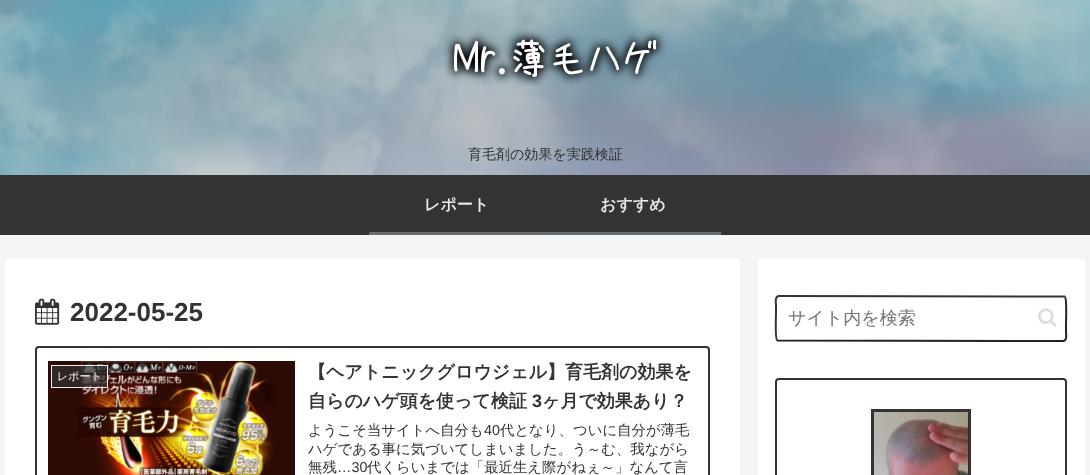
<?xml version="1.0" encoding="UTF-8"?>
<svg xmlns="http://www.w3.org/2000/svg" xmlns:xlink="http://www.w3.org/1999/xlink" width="1090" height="475">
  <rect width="100%" height="100%" fill="#f4f5f7" />
  <image x="0" y="0" width="1090" height="175" xlink:href="image1.png" />
  <image x="443" y="29" width="224" height="58" xlink:href="image2.png" />
  <rect y="175" width="1090" height="60" fill="#333333" />
  <rect x="369" y="232" width="176" height="3" fill="#696d6b" />
  <rect x="545" y="232" width="176" height="3" fill="#696e75" />
  <rect x="5" y="259" width="735" height="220" rx="4" fill="#ffffff" />
  <image x="35" y="298" width="25" height="27" xlink:href="image3.png" />
  <rect x="36" y="347" width="673" height="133" rx="3" fill="none" stroke="#333333" stroke-width="2" />
  <image x="48" y="361" width="247" height="114" xlink:href="image4.png" />
  <rect x="51.5" y="365.5" width="56" height="22" fill="#333333" fill-opacity="0.7" stroke="#eeeeee" />
  <rect x="758" y="259" width="327" height="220" rx="4" fill="#ffffff" />
  <path d="M 1065 297 c 2 2 1 24 1 28 v 6.5 c 0 2 1.5 9.5 -3 9.5 l -285.5 -0.5 l -0.5 -0.5" fill="none" stroke="#222222" stroke-width="2" />
  <path d="M 777 340 c -2 -2 -1 -24 -1 -28 v -6.5 c 0 -2 -1.5 -9.5 3 -9.5 l 285.5 0.5 l 0.5 0.5" fill="none" stroke="#333333" stroke-width="2" />
  <image x="1038" y="308" width="19" height="19" xlink:href="image5.png" />
  <rect x="776" y="379" width="290" height="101" rx="3" fill="none" stroke="#333333" stroke-width="2" />
  <rect x="872.5" y="410.5" width="97" height="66" fill="none" stroke="#333333" stroke-width="3" />
  <image x="874" y="412" width="94" height="63" xlink:href="image6.png" />
  <text x="468" y="159" style="font-family: WenQuanYi Zen Hei; font-size: 14px; font-weight: 500; fill: #333333">育毛剤の効果を実践検証</text>
  <text x="424" y="210" style="font-family: WenQuanYi Zen Hei; font-size: 16px; font-weight: bold; fill: #e9e9e9">レポート</text>
  <text x="600" y="210" style="font-family: WenQuanYi Zen Hei; font-size: 16px; font-weight: bold; fill: #e9e9e9">おすすめ</text>
  <text x="70" y="321" style="font-family: Liberation Sans; font-size: 26px; font-weight: bold; fill: #333333">2022-05-25</text>
  <text x="57" y="380" style="font-family: WenQuanYi Zen Hei; font-size: 11px; font-weight: 500; fill: #ffffff">レポート</text>
  <text x="308" y="378" style="font-family: WenQuanYi Zen Hei; font-size: 18px; font-weight: bold; fill: #333333">【ヘアトニックグロウジェル】育毛剤の効果を</text>
  <text x="308" y="407" style="font-family: WenQuanYi Zen Hei; font-size: 18px; font-weight: bold; fill: #333333">自らのハゲ頭を使って検証</text>
  <text x="532" y="407" style="font-family: Liberation Sans; font-size: 18px; font-weight: bold; fill: #333333">3</text>
  <text x="542" y="407" style="font-family: WenQuanYi Zen Hei; font-size: 18px; font-weight: bold; fill: #333333">ヶ月で効果あり？</text>
  <text x="308" y="435" style="font-family: WenQuanYi Zen Hei; font-size: 14.4px; font-weight: 500; fill: #333333">ようこそ当サイトへ自分も</text>
  <text x="484" y="435" style="font-family: Liberation Sans; font-size: 14.4px; fill: #333333">40</text>
  <text x="500" y="435" style="font-family: WenQuanYi Zen Hei; font-size: 14.4px; font-weight: 500; fill: #333333">代となり、ついに自分が薄毛</text>
  <text x="308" y="454" style="font-family: WenQuanYi Zen Hei; font-size: 14.4px; font-weight: 500; fill: #333333">ハゲである事に気づいてしまいました。う～む、我ながら</text>
  <text x="308" y="472" style="font-family: WenQuanYi Zen Hei; font-size: 14.4px; font-weight: 500; fill: #333333">無残</text>
  <text x="337" y="472" style="font-family: Liberation Sans; font-size: 14.4px; fill: #333333">…30</text>
  <text x="367" y="472" style="font-family: WenQuanYi Zen Hei; font-size: 14.4px; font-weight: 500; fill: #333333">代くらいまでは「最近生え際がねぇ～」なんて言</text>
  <text x="788" y="324" style="font-family: WenQuanYi Zen Hei; font-size: 18px; font-weight: 500; fill: #757575">サイト内を検索</text>
</svg>
